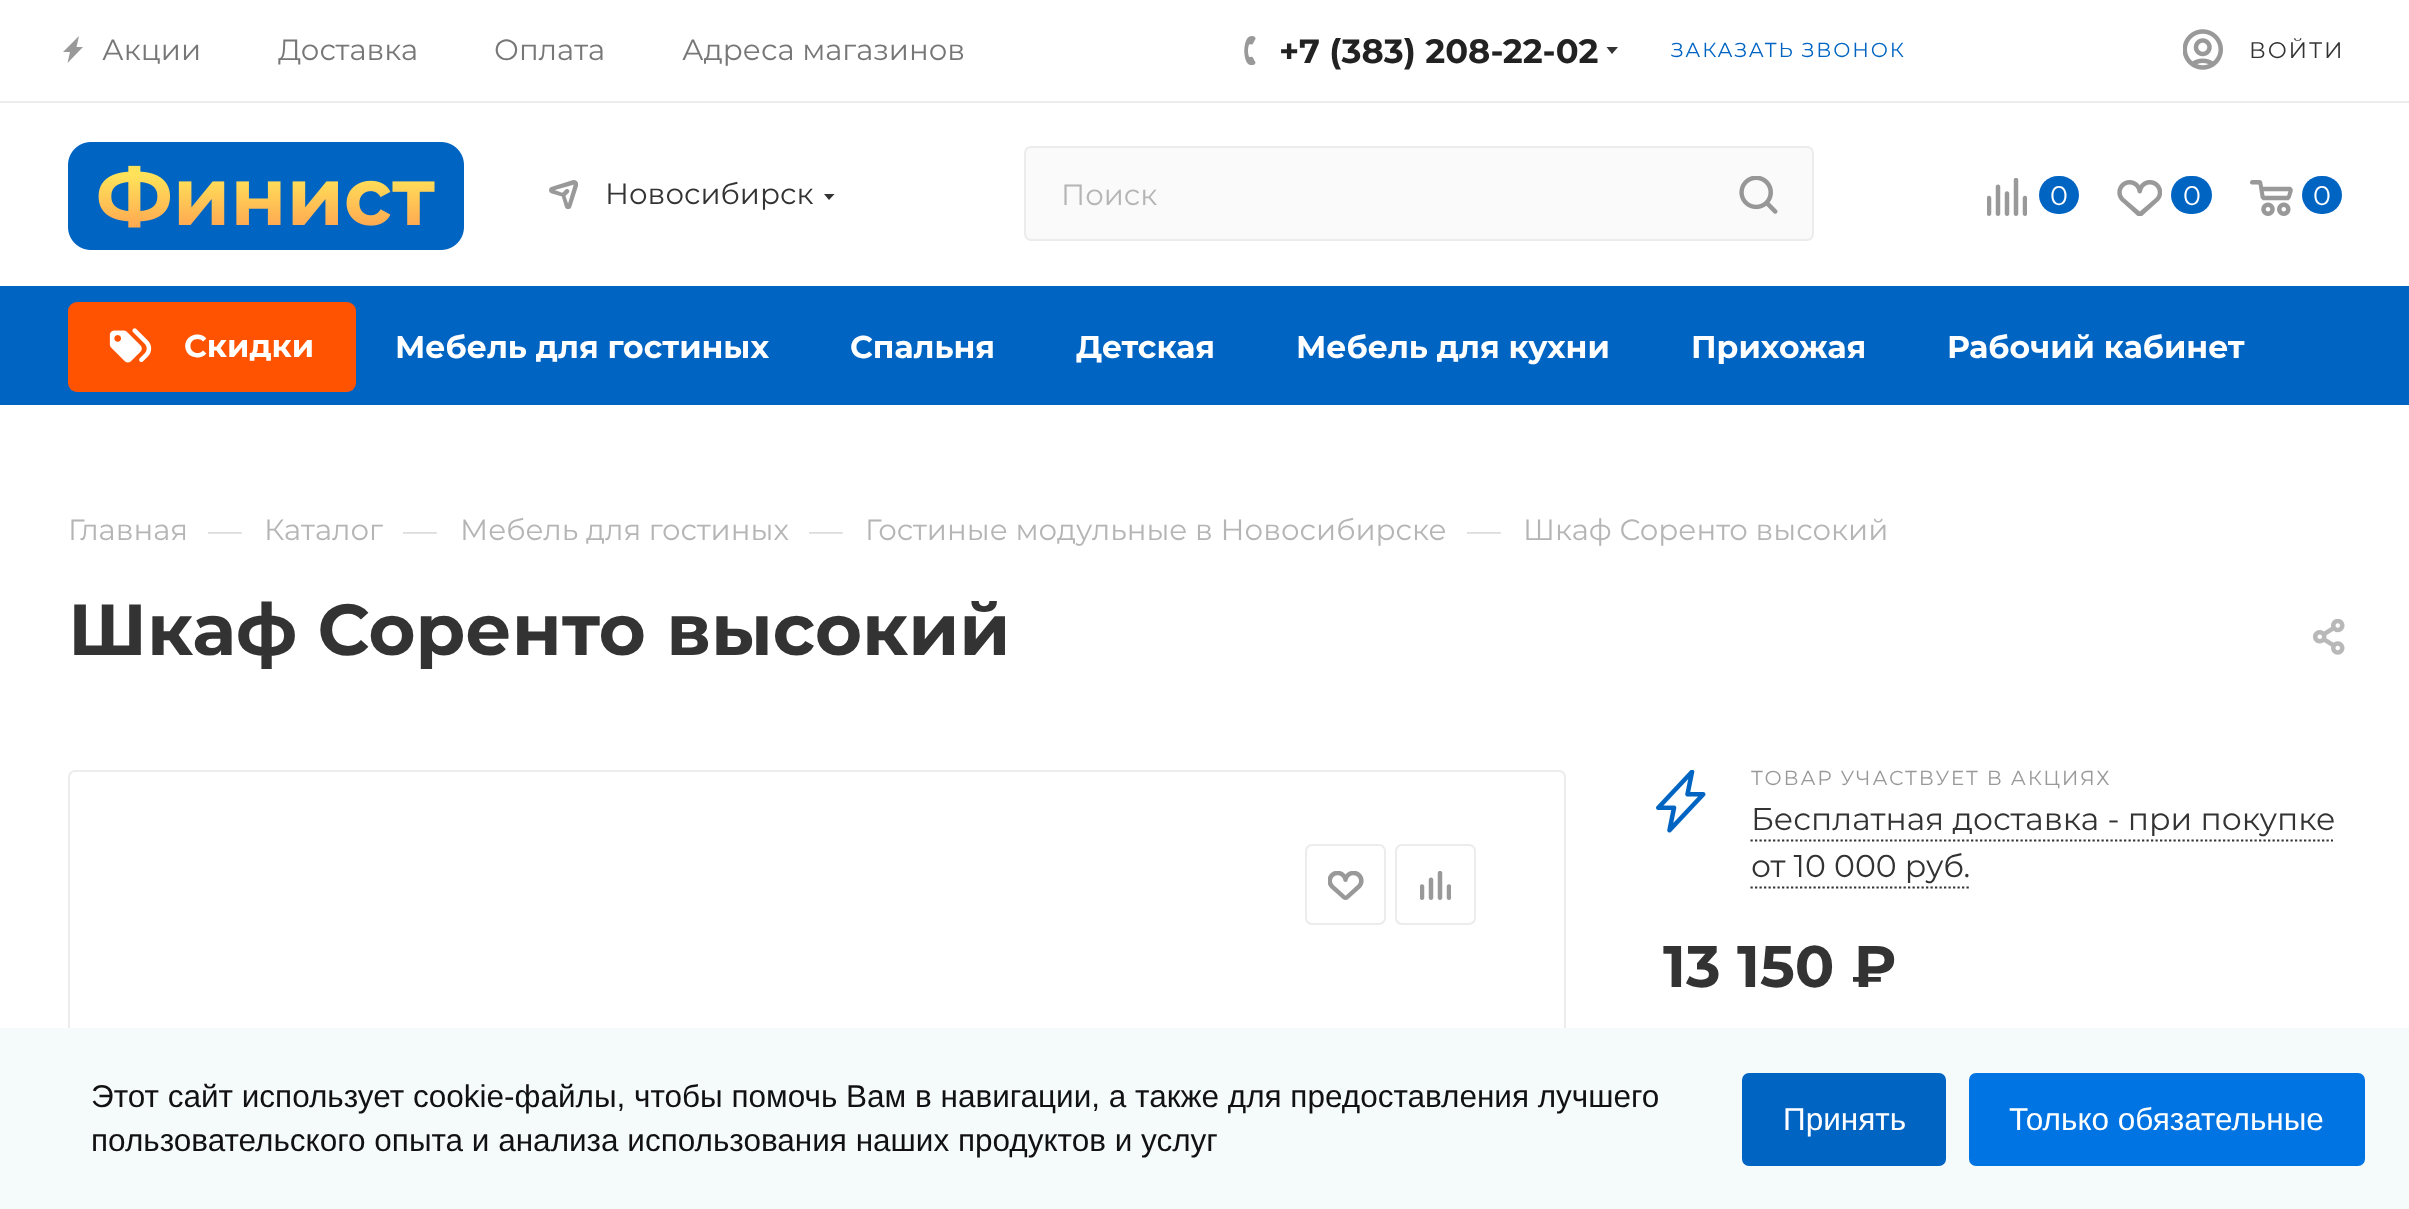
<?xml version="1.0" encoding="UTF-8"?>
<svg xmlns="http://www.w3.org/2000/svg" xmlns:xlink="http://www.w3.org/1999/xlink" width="2409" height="1209">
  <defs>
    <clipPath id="clip1"><rect x="824" y="194" width="11" height="7" /></clipPath>
  </defs>
  <rect width="100%" height="100%" fill="#ffffff" />
  <rect y="101" width="2409" height="2" fill="#ececec" />
  <path d="M 79 36 l -16 16 h 7 l -2.5 11 l 15.5 -16 h -6.5 z" fill="#999999" fill-rule="evenodd" />
  <image x="1244" y="36" width="12" height="29" xlink:href="image1.png" />
  <path d="M 1606.5 47 h 11.5 l -6 7 z" fill="#333333" fill-rule="evenodd" />
  <image x="2183" y="29" width="40" height="41" xlink:href="image2.png" />
  <image x="68" y="142" width="396" height="108" xlink:href="image3.png" />
  <image x="549" y="180" width="29" height="29" xlink:href="image4.png" />
  <g clip-path="url(#clip1)">
    <path d="M 823.5 193.5 h 11.5 l -6 6.5 z" fill="#333333" fill-rule="evenodd" />
  </g>
  <rect x="1025" y="147" width="788" height="93" rx="6" fill="#fafafa" stroke="#ececec" stroke-width="2" />
  <image x="1739" y="176" width="39" height="38" xlink:href="image5.png" />
  <image x="1987" y="178" width="40" height="38" xlink:href="image6.png" />
  <rect x="2039" y="176" width="40" height="38" rx="19" fill="#0064c3" />
  <image x="2117" y="180" width="45" height="36" xlink:href="image7.png" />
  <rect x="2171" y="176" width="41" height="38" rx="19" fill="#0064c3" />
  <image x="2250" y="180" width="43" height="36" xlink:href="image8.png" />
  <rect x="2302" y="176" width="40" height="38" rx="19" fill="#0064c3" />
  <rect y="286" width="2409" height="119" fill="#0064c3" />
  <rect x="68" y="302" width="288" height="90" rx="9" fill="#ff5301" />
  <image x="109" y="328" width="43" height="35" xlink:href="image9.png" />
  <image x="2313" y="619" width="32" height="36" xlink:href="image10.png" />
  <rect x="69" y="771" width="1496" height="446" rx="6" fill="none" stroke="#ececec" stroke-width="2" />
  <rect x="1306" y="845" width="79" height="79" rx="6" fill="none" stroke="#ececec" stroke-width="2" />
  <image x="1328" y="871" width="36" height="29" xlink:href="image11.png" />
  <rect x="1396" y="845" width="79" height="79" rx="6" fill="none" stroke="#ececec" stroke-width="2" />
  <image x="1420" y="871" width="31" height="29" xlink:href="image12.png" />
  <image x="1656" y="770" width="50" height="63" xlink:href="image13.png" />
  <path d="M 1750.5 840.5 h 582.5" fill="none" stroke="#333333" stroke-width="2.2" stroke-dasharray="2.25 2.25" />
  <path d="M 1750.5 887.5 h 218.5" fill="none" stroke="#333333" stroke-width="2.2" stroke-dasharray="2.25 2.25" />
  <rect y="1028" width="2409" height="181" fill="#f5fafa" />
  <rect x="1744.5" y="1075.5" width="199" height="88" rx="4.5" fill="#0064c3" stroke="#0064c3" stroke-width="5" />
  <rect x="1971.5" y="1075.5" width="391" height="88" rx="4.5" fill="#0074e2" stroke="#0074e2" stroke-width="5" />
  <text x="102" y="60" style="font-family: Montserrat; font-size: 29.25px; fill: #777777">Акции</text>
  <text x="278" y="60" style="font-family: Montserrat; font-size: 29.25px; fill: #777777">Доставка</text>
  <text x="494" y="60" style="font-family: Montserrat; font-size: 29.25px; fill: #777777">Оплата</text>
  <text x="682" y="60" style="font-family: Montserrat; font-size: 29.25px; fill: #777777">Адреса магазинов</text>
  <text x="1279" y="63" style="font-family: Montserrat; font-size: 33.75px; font-weight: bold; fill: #222222">+7 (383) 208-22-02</text>
  <text x="1671" y="57" style="font-family: Montserrat; font-size: 20.25px; letter-spacing: 1.8px; fill: #0064c3">ЗАКАЗАТЬ ЗВОНОК</text>
  <text x="2249" y="58" style="font-family: Montserrat; font-size: 22.5px; letter-spacing: 1.8px; fill: #333333">ВОЙТИ</text>
  <text x="605" y="204" style="font-family: Montserrat; font-size: 29.25px; fill: #333333">Новосибирск</text>
  <text x="1061" y="205" style="font-family: Montserrat; font-size: 29.25px; fill: #b6b5b5">Поиск</text>
  <text x="2050" y="205" style="font-family: Montserrat; font-size: 27px; fill: #ffffff">0</text>
  <text x="2183" y="205" style="font-family: Montserrat; font-size: 27px; fill: #ffffff">0</text>
  <text x="2313" y="205" style="font-family: Montserrat; font-size: 27px; fill: #ffffff">0</text>
  <text x="184" y="357" style="font-family: Montserrat; font-size: 31.5px; font-weight: bold; fill: #ffffff">Скидки</text>
  <text x="395" y="358" style="font-family: Montserrat; font-size: 31.5px; font-weight: bold; fill: #ffffff">Мебель для гостиных</text>
  <text x="850" y="358" style="font-family: Montserrat; font-size: 31.5px; font-weight: bold; fill: #ffffff">Спальня</text>
  <text x="1076" y="358" style="font-family: Montserrat; font-size: 31.5px; font-weight: bold; fill: #ffffff">Детская</text>
  <text x="1296" y="358" style="font-family: Montserrat; font-size: 31.5px; font-weight: bold; fill: #ffffff">Мебель для кухни</text>
  <text x="1691" y="358" style="font-family: Montserrat; font-size: 31.5px; font-weight: bold; fill: #ffffff">Прихожая</text>
  <text x="1947" y="358" style="font-family: Montserrat; font-size: 31.5px; font-weight: bold; fill: #ffffff">Рабочий кабинет</text>
  <text x="68" y="540" style="font-family: Montserrat; font-size: 29.25px; fill: #b6b5b5">Главная</text>
  <text x="208" y="542" style="font-family: Montserrat; font-size: 33.75px; fill: #dddddd">—</text>
  <text x="264" y="540" style="font-family: Montserrat; font-size: 29.25px; fill: #b6b5b5">Каталог</text>
  <text x="403" y="542" style="font-family: Montserrat; font-size: 33.75px; fill: #dddddd">—</text>
  <text x="460" y="540" style="font-family: Montserrat; font-size: 29.25px; fill: #b6b5b5">Мебель для гостиных</text>
  <text x="809" y="542" style="font-family: Montserrat; font-size: 33.75px; fill: #dddddd">—</text>
  <text x="865" y="540" style="font-family: Montserrat; font-size: 29.25px; fill: #b6b5b5">Гостиные модульные в Новосибирске</text>
  <text x="1467" y="542" style="font-family: Montserrat; font-size: 33.75px; fill: #dddddd">—</text>
  <text x="1523" y="540" style="font-family: Montserrat; font-size: 29.25px; fill: #b6b5b5">Шкаф Соренто высокий</text>
  <text x="68" y="655" style="font-family: Montserrat; font-size: 72px; font-weight: bold; fill: #333333">Шкаф Соренто высокий</text>
  <text x="1751" y="785" style="font-family: Montserrat; font-size: 20.25px; letter-spacing: 1.8px; fill: #999999">ТОВАР УЧАСТВУЕТ В АКЦИЯХ</text>
  <text x="1751" y="830" style="font-family: Montserrat; font-size: 31.5px; fill: #333333">Бесплатная доставка - при покупке</text>
  <text x="1751" y="877" style="font-family: Montserrat; font-size: 31.5px; fill: #333333">от 10 000 руб.</text>
  <text x="1663" y="987" style="font-family: Montserrat; font-size: 58.5px; font-weight: bold; fill: #333333">13 150 ₽</text>
  <text x="91" y="1107" style="font-family: Liberation Sans; font-size: 31.5px; fill: #111111">Этот сайт использует cookie-файлы, чтобы помочь Вам в навигации, а также для предоставления лучшего</text>
  <text x="91" y="1151" style="font-family: Liberation Sans; font-size: 31.5px; fill: #111111">пользовательского опыта и анализа использования наших продуктов и услуг</text>
  <text x="1783" y="1130" style="font-family: Liberation Sans; font-size: 31.5px; fill: #ffffff">Принять</text>
  <text x="2009" y="1130" style="font-family: Liberation Sans; font-size: 31.5px; fill: #ffffff">Только обязательные</text>
</svg>
